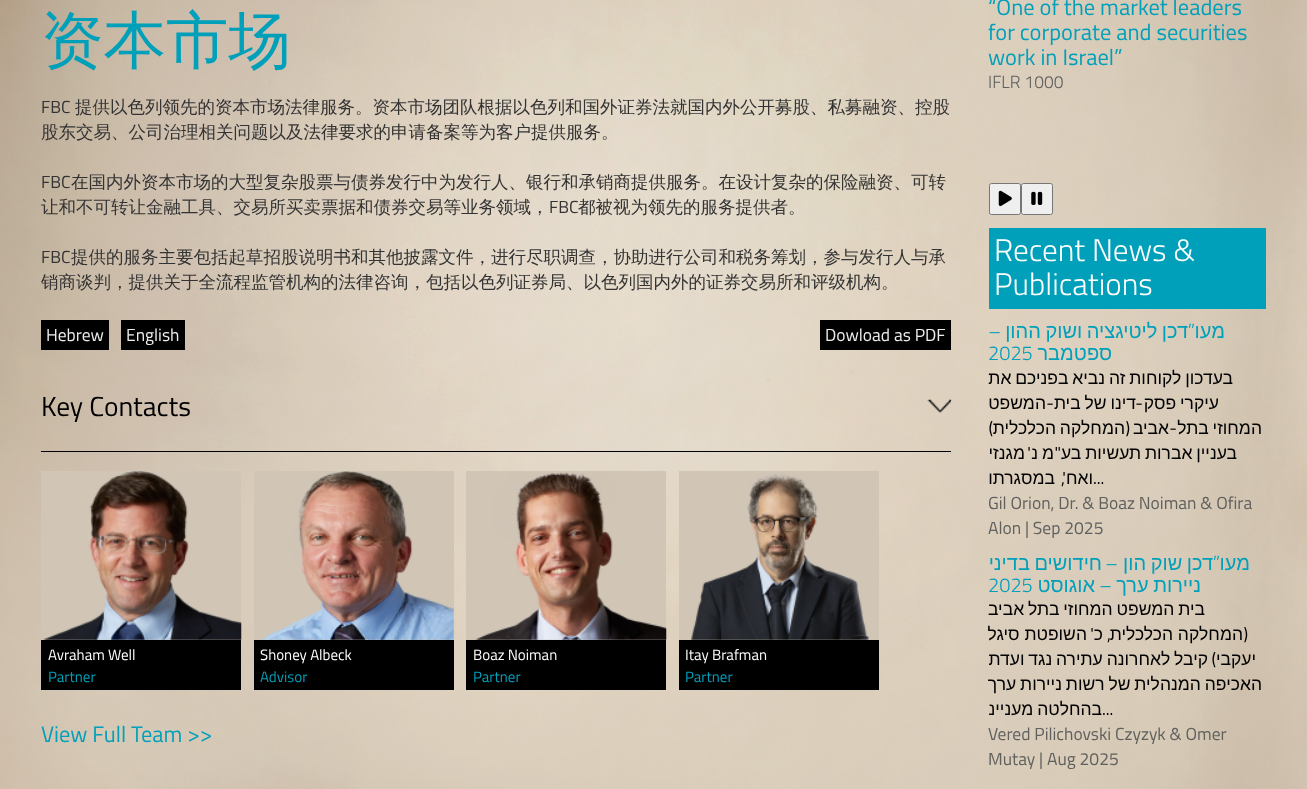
<?xml version="1.0" encoding="UTF-8"?>
<svg xmlns="http://www.w3.org/2000/svg" xmlns:xlink="http://www.w3.org/1999/xlink" width="1307" height="789">
  <rect width="100%" height="100%" fill="#ffffff" />
  <image x="0" y="0" width="1307" height="789" xlink:href="image1.png" />
  <rect x="41" y="320" width="68" height="30" fill="#000000" />
  <rect x="121" y="320" width="64" height="30" fill="#000000" />
  <rect x="820" y="320" width="131" height="30" fill="#000000" />
  <rect x="41" y="451" width="910" height="1" fill="#000000" />
  <image x="927" y="399" width="25" height="14" xlink:href="image2.png" />
  <rect x="41" y="471" width="200" height="169" fill="#d1c5b6" />
  <image x="43" y="471" width="199" height="169" xlink:href="image3.png" />
  <rect x="41" y="640" width="200" height="50" fill="#000000" />
  <rect x="254" y="471" width="200" height="169" fill="#d1c5b6" />
  <image x="262" y="471" width="192" height="169" xlink:href="image4.png" />
  <rect x="254" y="640" width="200" height="50" fill="#000000" />
  <rect x="466" y="471" width="200" height="169" fill="#d1c5b6" />
  <image x="475" y="472" width="192" height="168" xlink:href="image5.png" />
  <rect x="466" y="640" width="200" height="50" fill="#000000" />
  <rect x="679" y="471" width="200" height="169" fill="#d1c5b6" />
  <image x="691" y="473" width="178" height="167" xlink:href="image6.png" />
  <rect x="679" y="640" width="200" height="50" fill="#000000" />
  <rect x="989.5" y="183.5" width="31" height="31" rx="2" fill="#efefef" stroke="#767676" />
  <image x="998" y="190" width="14" height="17" xlink:href="image7.png" />
  <rect x="1021.5" y="183.5" width="31" height="31" rx="2" fill="#efefef" stroke="#767676" />
  <image x="1031" y="191" width="12" height="14" xlink:href="image8.png" />
  <rect x="989" y="228" width="277" height="81" fill="#00a0ba" />
  <text x="41" y="62" style="font-family: WenQuanYi Zen Hei; font-size: 62.5px; font-weight: 500; fill: #00a0ba">资本市场</text>
  <text x="41" y="113" style="font-family: Titillium Web; font-size: 17.5px; fill: #333333">FBC</text>
  <text x="75" y="113" style="font-family: WenQuanYi Zen Hei; font-size: 17.5px; font-weight: 500; fill: #333333">提供以色列领先的资本市场法律服务。资本市场团队根据以色列和国外证券法就国内外公开募股、私募融资、控股</text>
  <text x="41" y="138" style="font-family: WenQuanYi Zen Hei; font-size: 17.5px; font-weight: 500; fill: #333333">股东交易、公司治理相关问题以及法律要求的申请备案等为客户提供服务。</text>
  <text x="41" y="188" style="font-family: Titillium Web; font-size: 17.5px; fill: #333333">FBC</text>
  <text x="71" y="188" style="font-family: WenQuanYi Zen Hei; font-size: 17.5px; font-weight: 500; fill: #333333">在国内外资本市场的大型复杂股票与债券发行中为发行人、银行和承销商提供服务。在设计复杂的保险融资、可转</text>
  <text x="41" y="213" style="font-family: WenQuanYi Zen Hei; font-size: 17.5px; font-weight: 500; fill: #333333">让和不可转让金融工具、交易所买卖票据和债券交易等业务领域，</text>
  <text x="549" y="213" style="font-family: Titillium Web; font-size: 17.5px; fill: #333333">FBC</text>
  <text x="578" y="213" style="font-family: WenQuanYi Zen Hei; font-size: 17.5px; font-weight: 500; fill: #333333">都被视为领先的服务提供者。</text>
  <text x="41" y="263" style="font-family: Titillium Web; font-size: 17.5px; fill: #333333">FBC</text>
  <text x="71" y="263" style="font-family: WenQuanYi Zen Hei; font-size: 17.5px; font-weight: 500; fill: #333333">提供的服务主要包括起草招股说明书和其他披露文件，进行尽职调查，协助进行公司和税务筹划，参与发行人与承</text>
  <text x="41" y="288" style="font-family: WenQuanYi Zen Hei; font-size: 17.5px; font-weight: 500; fill: #333333">销商谈判，提供关于全流程监管机构的法律咨询，包括以色列证券局、以色列国内外的证券交易所和评级机构。</text>
  <text x="46" y="341" style="font-family: Titillium Web; font-size: 17.5px; fill: #ededed">Hebrew</text>
  <text x="126" y="341" style="font-family: Titillium Web; font-size: 17.5px; fill: #ededed">English</text>
  <text x="825" y="341" style="font-family: Titillium Web; font-size: 17.5px; fill: #ededed">Dowload as PDF</text>
  <text x="41" y="416" style="font-family: Titillium Web; font-size: 27.5px; fill: #000000">Key Contacts</text>
  <text x="48" y="660" style="font-family: Titillium Web; font-size: 15px; fill: #ffffff">Avraham Well</text>
  <text x="48" y="682" style="font-family: Titillium Web; font-size: 15px; fill: #00a0ba">Partner</text>
  <text x="260" y="660" style="font-family: Titillium Web; font-size: 15px; fill: #ffffff">Shoney Albeck</text>
  <text x="260" y="682" style="font-family: Titillium Web; font-size: 15px; fill: #00a0ba">Advisor</text>
  <text x="473" y="660" style="font-family: Titillium Web; font-size: 15px; fill: #ffffff">Boaz Noiman</text>
  <text x="473" y="682" style="font-family: Titillium Web; font-size: 15px; fill: #00a0ba">Partner</text>
  <text x="685" y="660" style="font-family: Titillium Web; font-size: 15px; fill: #ffffff">Itay Brafman</text>
  <text x="685" y="682" style="font-family: Titillium Web; font-size: 15px; fill: #00a0ba">Partner</text>
  <text x="41" y="742" style="font-family: Titillium Web; font-size: 22.5px; fill: #00a0ba">View Full Team &gt;&gt;</text>
  <text x="988" y="15" style="font-family: Titillium Web; font-size: 22.5px; fill: #00a0ba">“One of the market leaders</text>
  <text x="988" y="40" style="font-family: Titillium Web; font-size: 22.5px; fill: #00a0ba">for corporate and securities</text>
  <text x="988" y="65" style="font-family: Titillium Web; font-size: 22.5px; fill: #00a0ba">work in Israel”</text>
  <text x="988" y="88" style="font-family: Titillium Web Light; font-size: 17.5px; font-weight: 300; fill: #60605e">IFLR 1000</text>
  <text x="994" y="261" style="font-family: Titillium Web Light; font-size: 31.25px; font-weight: 300; fill: #ffffff">Recent News &amp;</text>
  <text x="994" y="295" style="font-family: Titillium Web Light; font-size: 31.25px; font-weight: 300; fill: #ffffff">Publications</text>
  <text x="1001" y="338" style="font-family: Titillium Web Light; font-size: 20px; font-weight: 300; direction: rtl; fill: #00a0ba">–</text>
  <text x="1188" y="338" word-spacing="-1" style="font-family: Liberation Sans; font-size: 20px; direction: rtl; fill: #00a0ba">דכן ליטיגציה ושוק ההון</text>
  <text x="1195" y="338" style="font-family: Titillium Web Light; font-size: 20px; font-weight: 300; direction: rtl; fill: #00a0ba">”</text>
  <text x="1225" y="338" style="font-family: Liberation Sans; font-size: 20px; direction: rtl; fill: #00a0ba">מעו</text>
  <text x="988" y="360" style="font-family: Titillium Web Light; font-size: 20px; font-weight: 300; fill: #00a0ba">2025</text>
  <text x="1112" y="360" style="font-family: Liberation Sans; font-size: 20px; direction: rtl; fill: #00a0ba">ספטמבר</text>
  <text x="1233" y="384" word-spacing="-1" style="font-family: Liberation Sans; font-size: 17.5px; direction: rtl; fill: #000000">בעדכון לקוחות זה נביא בפניכם את</text>
  <text x="1046" y="409" style="font-family: Liberation Sans; font-size: 17.5px; direction: rtl; fill: #000000">המשפט</text>
  <text x="1054" y="409" style="font-family: Titillium Web; font-size: 17.5px; direction: rtl; fill: #000000">-</text>
  <text x="1136" y="409" word-spacing="-1" style="font-family: Liberation Sans; font-size: 17.5px; direction: rtl; fill: #000000">דינו של בית</text>
  <text x="1143" y="409" style="font-family: Titillium Web; font-size: 17.5px; direction: rtl; fill: #000000">-</text>
  <text x="1219" y="409" word-spacing="-1" style="font-family: Liberation Sans; font-size: 17.5px; direction: rtl; fill: #000000">עיקרי פסק</text>
  <text x="993" y="434" style="font-family: Titillium Web; font-size: 17.5px; direction: rtl; fill: #000000">)</text>
  <text x="1125" y="434" word-spacing="-1" style="font-family: Liberation Sans; font-size: 17.5px; direction: rtl; fill: #000000">המחלקה הכלכלית</text>
  <text x="1130" y="434" style="font-family: Titillium Web; font-size: 17.5px; direction: rtl; fill: #000000">(</text>
  <text x="1169" y="434" style="font-family: Liberation Sans; font-size: 17.5px; direction: rtl; fill: #000000">אביב</text>
  <text x="1177" y="434" style="font-family: Titillium Web; font-size: 17.5px; direction: rtl; fill: #000000">-</text>
  <text x="1262" y="434" word-spacing="-1" style="font-family: Liberation Sans; font-size: 17.5px; direction: rtl; fill: #000000">המחוזי בתל</text>
  <text x="1025" y="459" style="font-family: Liberation Sans; font-size: 17.5px; direction: rtl; fill: #000000">מגנזי</text>
  <text x="1031" y="459" style="font-family: Titillium Web; font-size: 17.5px; direction: rtl; fill: #000000">'</text>
  <text x="1054" y="459" word-spacing="-1" style="font-family: Liberation Sans; font-size: 17.5px; direction: rtl; fill: #000000">מ נ</text>
  <text x="1061" y="459" style="font-family: Titillium Web; font-size: 17.5px; direction: rtl; fill: #000000">"</text>
  <text x="1237" y="459" word-spacing="-1" style="font-family: Liberation Sans; font-size: 17.5px; direction: rtl; fill: #000000">בעניין אברות תעשיות בע</text>
  <text x="1055" y="484" style="font-family: Liberation Sans; font-size: 17.5px; direction: rtl; fill: #000000">במסגרתו</text>
  <text x="1066" y="484" style="font-family: Titillium Web; font-size: 17.5px; direction: rtl; fill: #000000">',</text>
  <text x="1093" y="484" style="font-family: Liberation Sans; font-size: 17.5px; direction: rtl; fill: #000000">ואח</text>
  <text x="1093" y="484" style="font-family: Titillium Web; font-size: 17.5px; fill: #000000">...</text>
  <text x="988" y="509" style="font-family: Titillium Web; font-size: 17.5px; fill: #60605e">Gil Orion, Dr. &amp; Boaz Noiman &amp; Ofira</text>
  <text x="988" y="534" style="font-family: Titillium Web; font-size: 17.5px; fill: #60605e">Alon | Sep 2025</text>
  <text x="1102" y="570" word-spacing="-1" style="font-family: Liberation Sans; font-size: 20px; direction: rtl; fill: #00a0ba">חידושים בדיני</text>
  <text x="1118" y="570" style="font-family: Titillium Web Light; font-size: 20px; font-weight: 300; direction: rtl; fill: #00a0ba">–</text>
  <text x="1213" y="570" word-spacing="-1" style="font-family: Liberation Sans; font-size: 20px; direction: rtl; fill: #00a0ba">דכן שוק הון</text>
  <text x="1220" y="570" style="font-family: Titillium Web Light; font-size: 20px; font-weight: 300; direction: rtl; fill: #00a0ba">”</text>
  <text x="1250" y="570" style="font-family: Liberation Sans; font-size: 20px; direction: rtl; fill: #00a0ba">מעו</text>
  <text x="988" y="592" style="font-family: Titillium Web Light; font-size: 20px; font-weight: 300; fill: #00a0ba">2025</text>
  <text x="1095" y="592" style="font-family: Liberation Sans; font-size: 20px; direction: rtl; fill: #00a0ba">אוגוסט</text>
  <text x="1112" y="592" style="font-family: Titillium Web Light; font-size: 20px; font-weight: 300; direction: rtl; fill: #00a0ba">–</text>
  <text x="1201" y="592" word-spacing="-1" style="font-family: Liberation Sans; font-size: 20px; direction: rtl; fill: #00a0ba">ניירות ערך</text>
  <text x="1205" y="615" word-spacing="-1" style="font-family: Liberation Sans; font-size: 17.5px; direction: rtl; fill: #000000">בית המשפט המחוזי בתל אביב</text>
  <text x="1087" y="640" style="font-family: Liberation Sans; font-size: 17.5px; direction: rtl; fill: #000000">השופטת סיגל</text>
  <text x="1094" y="640" style="font-family: Titillium Web; font-size: 17.5px; direction: rtl; fill: #000000">'</text>
  <text x="1103" y="640" style="font-family: Liberation Sans; font-size: 17.5px; direction: rtl; fill: #000000">כ</text>
  <text x="1243" y="640" style="font-family: Liberation Sans; font-size: 17.5px; direction: rtl; fill: #000000">המחלקה הכלכלית</text>
  <text x="1248" y="640" style="font-family: Titillium Web; font-size: 17.5px; direction: rtl; fill: #000000">(</text>
  <text x="1111" y="640" style="font-family: Titillium Web; font-size: 17.5px; direction: rtl; fill: #000000">,</text>
  <text x="1208" y="665" word-spacing="-1" style="font-family: Liberation Sans; font-size: 17.5px; direction: rtl; fill: #000000">קיבל לאחרונה עתירה נגד ועדת</text>
  <text x="1216" y="665" style="font-family: Titillium Web; font-size: 17.5px; direction: rtl; fill: #000000">)</text>
  <text x="1256" y="665" style="font-family: Liberation Sans; font-size: 17.5px; direction: rtl; fill: #000000">יעקבי</text>
  <text x="1262" y="690" word-spacing="-1" style="font-family: Liberation Sans; font-size: 17.5px; direction: rtl; fill: #000000">האכיפה המנהלית של רשות ניירות ערך</text>
  <text x="1102" y="715" word-spacing="-1" style="font-family: Liberation Sans; font-size: 17.5px; direction: rtl; fill: #000000">בהחלטה מעניינ</text>
  <text x="1102" y="715" style="font-family: Titillium Web; font-size: 17.5px; fill: #000000">...</text>
  <text x="988" y="740" style="font-family: Titillium Web; font-size: 17.5px; fill: #60605e">Vered Pilichovski Czyzyk &amp; Omer</text>
  <text x="988" y="765" style="font-family: Titillium Web; font-size: 17.5px; fill: #60605e">Mutay | Aug 2025</text>
</svg>
